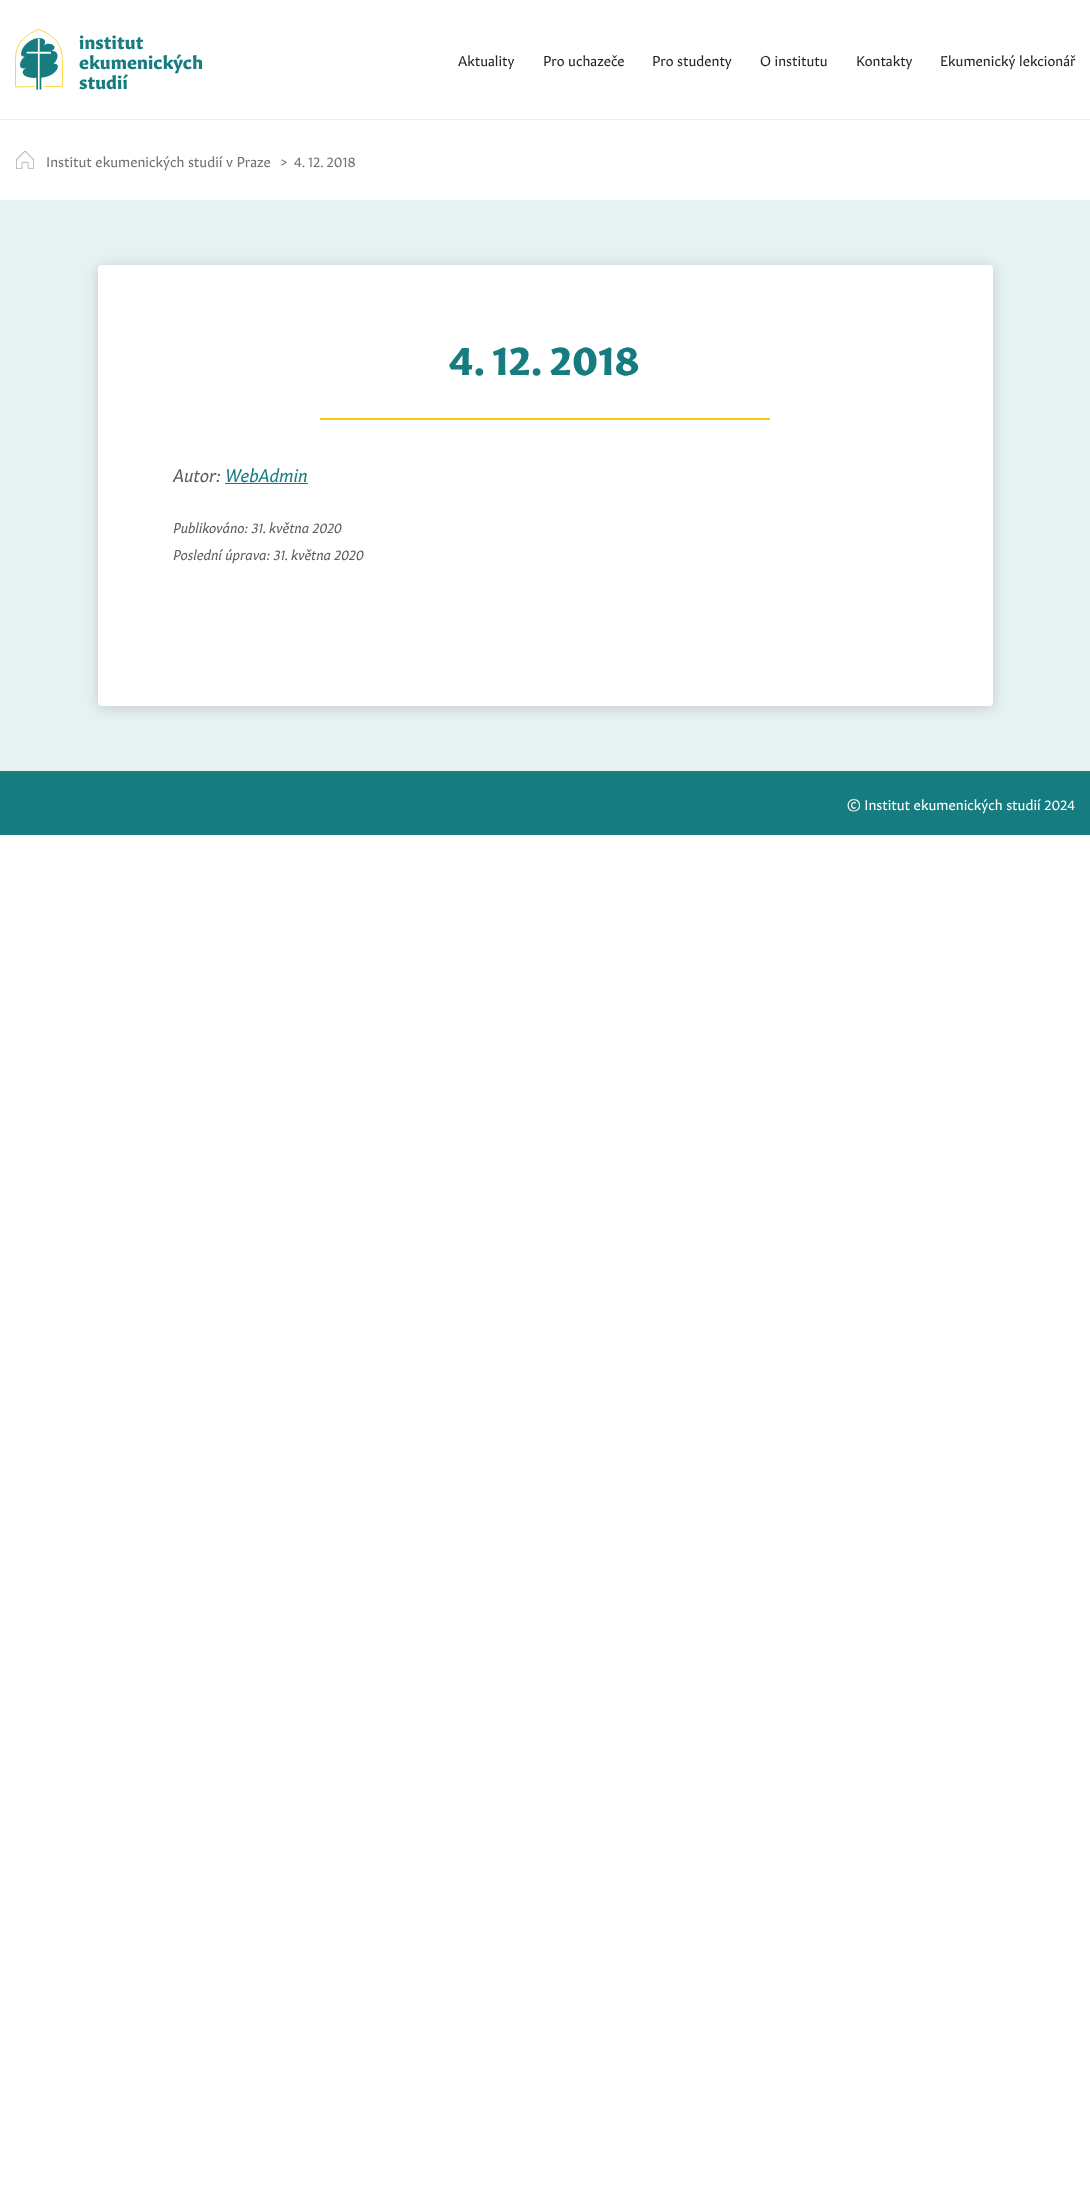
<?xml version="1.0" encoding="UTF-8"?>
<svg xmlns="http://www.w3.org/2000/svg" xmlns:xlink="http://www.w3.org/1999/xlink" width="1090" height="2208">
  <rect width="100%" height="100%" fill="#ffffff" />
  <rect y="119" width="1090" height="1" fill="#e6f1f1" />
  <image x="15" y="29" width="48" height="61" xlink:href="image1.png" />
  <image x="16" y="151" width="18" height="18" xlink:href="image2.png" />
  <rect y="200" width="1090" height="571" fill="#e6f1f1" />
  <rect x="98" y="267" width="895" height="441" rx="4" fill="#000000" fill-opacity="0.15" filter="blur(7px)" />
  <rect x="98" y="265" width="895" height="441" rx="4" fill="#ffffff" />
  <rect x="320" y="418" width="450" height="2" fill="#faca0c" />
  <rect x="225" y="483" width="83" height="1" fill="#167c80" />
  <rect y="771" width="1090" height="64" fill="#167c80" />
  <text x="79" y="49" style="font-family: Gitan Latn; font-size: 18px; font-weight: bold; letter-spacing: 0.1px; fill: #167c80">institut</text>
  <text x="79" y="69" style="font-family: Gitan Latn; font-size: 18px; font-weight: bold; letter-spacing: 0.1px; fill: #167c80">ekumenických</text>
  <text x="79" y="89" style="font-family: Gitan Latn; font-size: 18px; font-weight: bold; letter-spacing: 0.1px; fill: #167c80">studií</text>
  <text x="458" y="66" style="font-family: Gitan Latn; font-size: 14px; fill: #262626">Aktuality</text>
  <text x="543" y="66" style="font-family: Gitan Latn; font-size: 14px; fill: #262626">Pro uchazeče</text>
  <text x="652" y="66" style="font-family: Gitan Latn; font-size: 14px; fill: #262626">Pro studenty</text>
  <text x="760" y="66" style="font-family: Gitan Latn; font-size: 14px; fill: #262626">O institutu</text>
  <text x="856" y="66" style="font-family: Gitan Latn; font-size: 14px; fill: #262626">Kontakty</text>
  <text x="940" y="66" style="font-family: Gitan Latn; font-size: 14px; fill: #262626">Ekumenický lekcionář</text>
  <text x="46" y="167" style="font-family: Gitan Latn; font-size: 14px; fill: #727272">Institut ekumenických studií v Praze</text>
  <text x="280" y="167" style="font-family: Gitan Latn; font-size: 14px; fill: #727272">&gt;</text>
  <text x="294" y="167" style="font-family: Gitan Latn; font-size: 14px; fill: #727272">4. 12. 2018</text>
  <text x="449" y="375" style="font-family: Gitan Latn; font-size: 40px; font-weight: bold; letter-spacing: 0.25px; fill: #167c80">4. 12. 2018</text>
  <text x="173" y="482" style="font-family: Gitan Latn; font-size: 18px; font-style: italic; fill: #5c5c5c">Autor:</text>
  <text x="225" y="482" style="font-family: Gitan Latn; font-size: 18px; font-style: italic; fill: #167c80">WebAdmin</text>
  <text x="173" y="533" style="font-family: Gitan Latn; font-size: 14px; font-style: italic; fill: #5c5c5c">Publikováno: 31. května 2020</text>
  <text x="173" y="560" style="font-family: Gitan Latn; font-size: 14px; font-style: italic; fill: #5c5c5c">Poslední úprava: 31. května 2020</text>
  <text x="847" y="810" style="font-family: Gitan Latn; font-size: 14px; fill: #ffffff">© Institut ekumenických studií 2024</text>
</svg>
